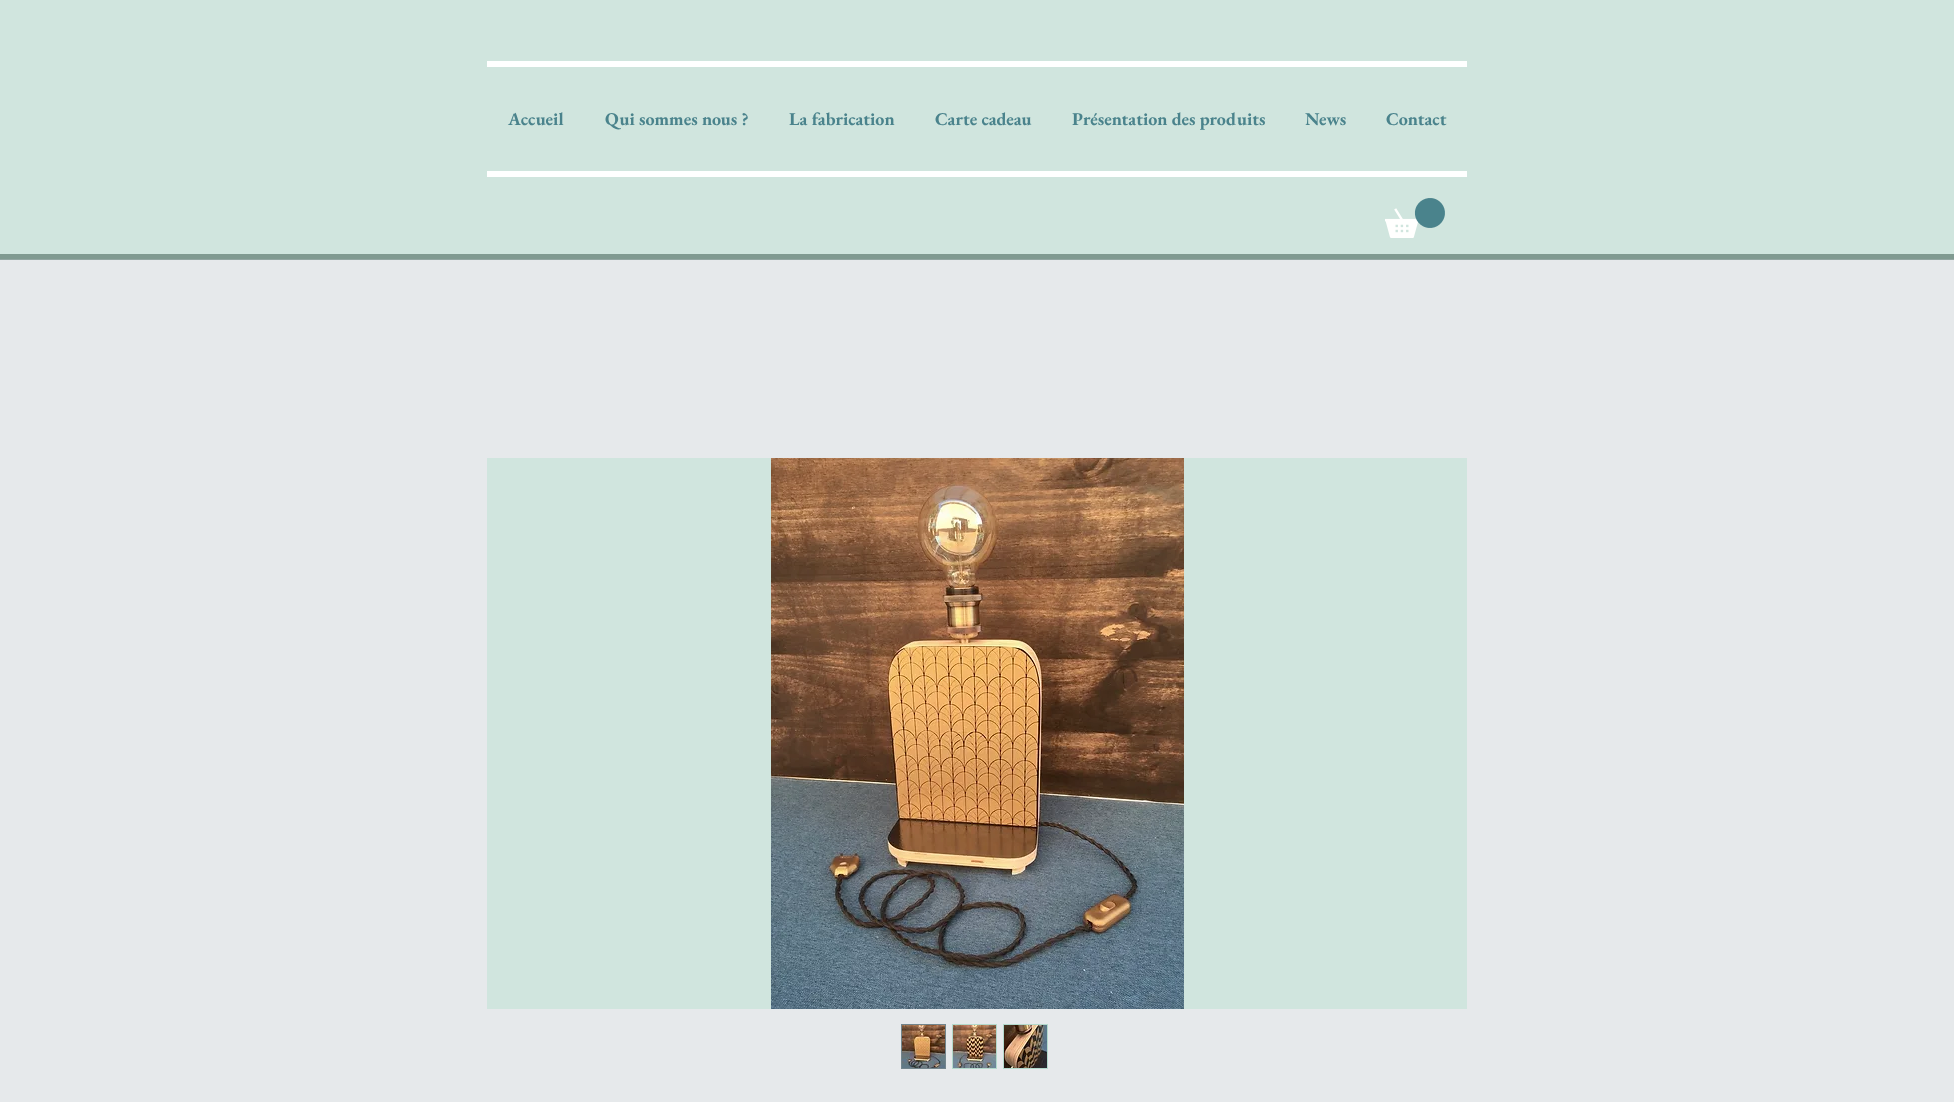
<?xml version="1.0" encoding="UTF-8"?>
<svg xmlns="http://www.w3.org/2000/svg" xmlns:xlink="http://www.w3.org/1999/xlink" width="1954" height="1102">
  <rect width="100%" height="100%" fill="#e6e9eb" />
  <rect width="1954" height="254" fill="#d0e5de" />
  <rect y="254" width="1954" height="5" fill="#809a91" />
  <rect x="487" y="61" width="980" height="6" fill="#ffffff" />
  <rect x="487" y="171" width="980" height="6" fill="#ffffff" />
  <image x="1385" y="198" width="60" height="40" xlink:href="image1.png" />
  <rect y="259" width="1954" height="1" fill="#92a6a2" />
  <rect x="487" y="458" width="980" height="551" fill="#d0e5de" />
  <image x="771" y="458" width="413" height="551" xlink:href="image2.png" />
  <rect x="901.5" y="1024.5" width="44" height="44" fill="none" stroke="#72858c" />
  <image x="902" y="1025" width="43" height="43" xlink:href="image3.png" />
  <rect x="952" y="1024" width="45" height="45" fill="#b3d9cc" />
  <image x="953" y="1025" width="43" height="43" xlink:href="image4.png" />
  <rect x="1003" y="1024" width="45" height="45" fill="#b3d9cc" />
  <image x="1004" y="1025" width="43" height="43" xlink:href="image5.png" />
  <text x="508" y="125" style="font-family: EB Garamond; font-size: 18px; font-weight: bold; fill: #4a838c">Accueil</text>
  <text x="605" y="125" style="font-family: EB Garamond; font-size: 18px; font-weight: bold; fill: #4a838c">Qui sommes nous ?</text>
  <text x="789" y="125" style="font-family: EB Garamond; font-size: 18px; font-weight: bold; fill: #4a838c">La fabrication</text>
  <text x="935" y="125" style="font-family: EB Garamond; font-size: 18px; font-weight: bold; fill: #4a838c">Carte cadeau</text>
  <text x="1072" y="125" style="font-family: EB Garamond; font-size: 18px; font-weight: bold; fill: #4a838c">Présentation des produits</text>
  <text x="1305" y="125" style="font-family: EB Garamond; font-size: 18px; font-weight: bold; fill: #4a838c">News</text>
  <text x="1386" y="125" style="font-family: EB Garamond; font-size: 18px; font-weight: bold; fill: #4a838c">Contact</text>
</svg>
